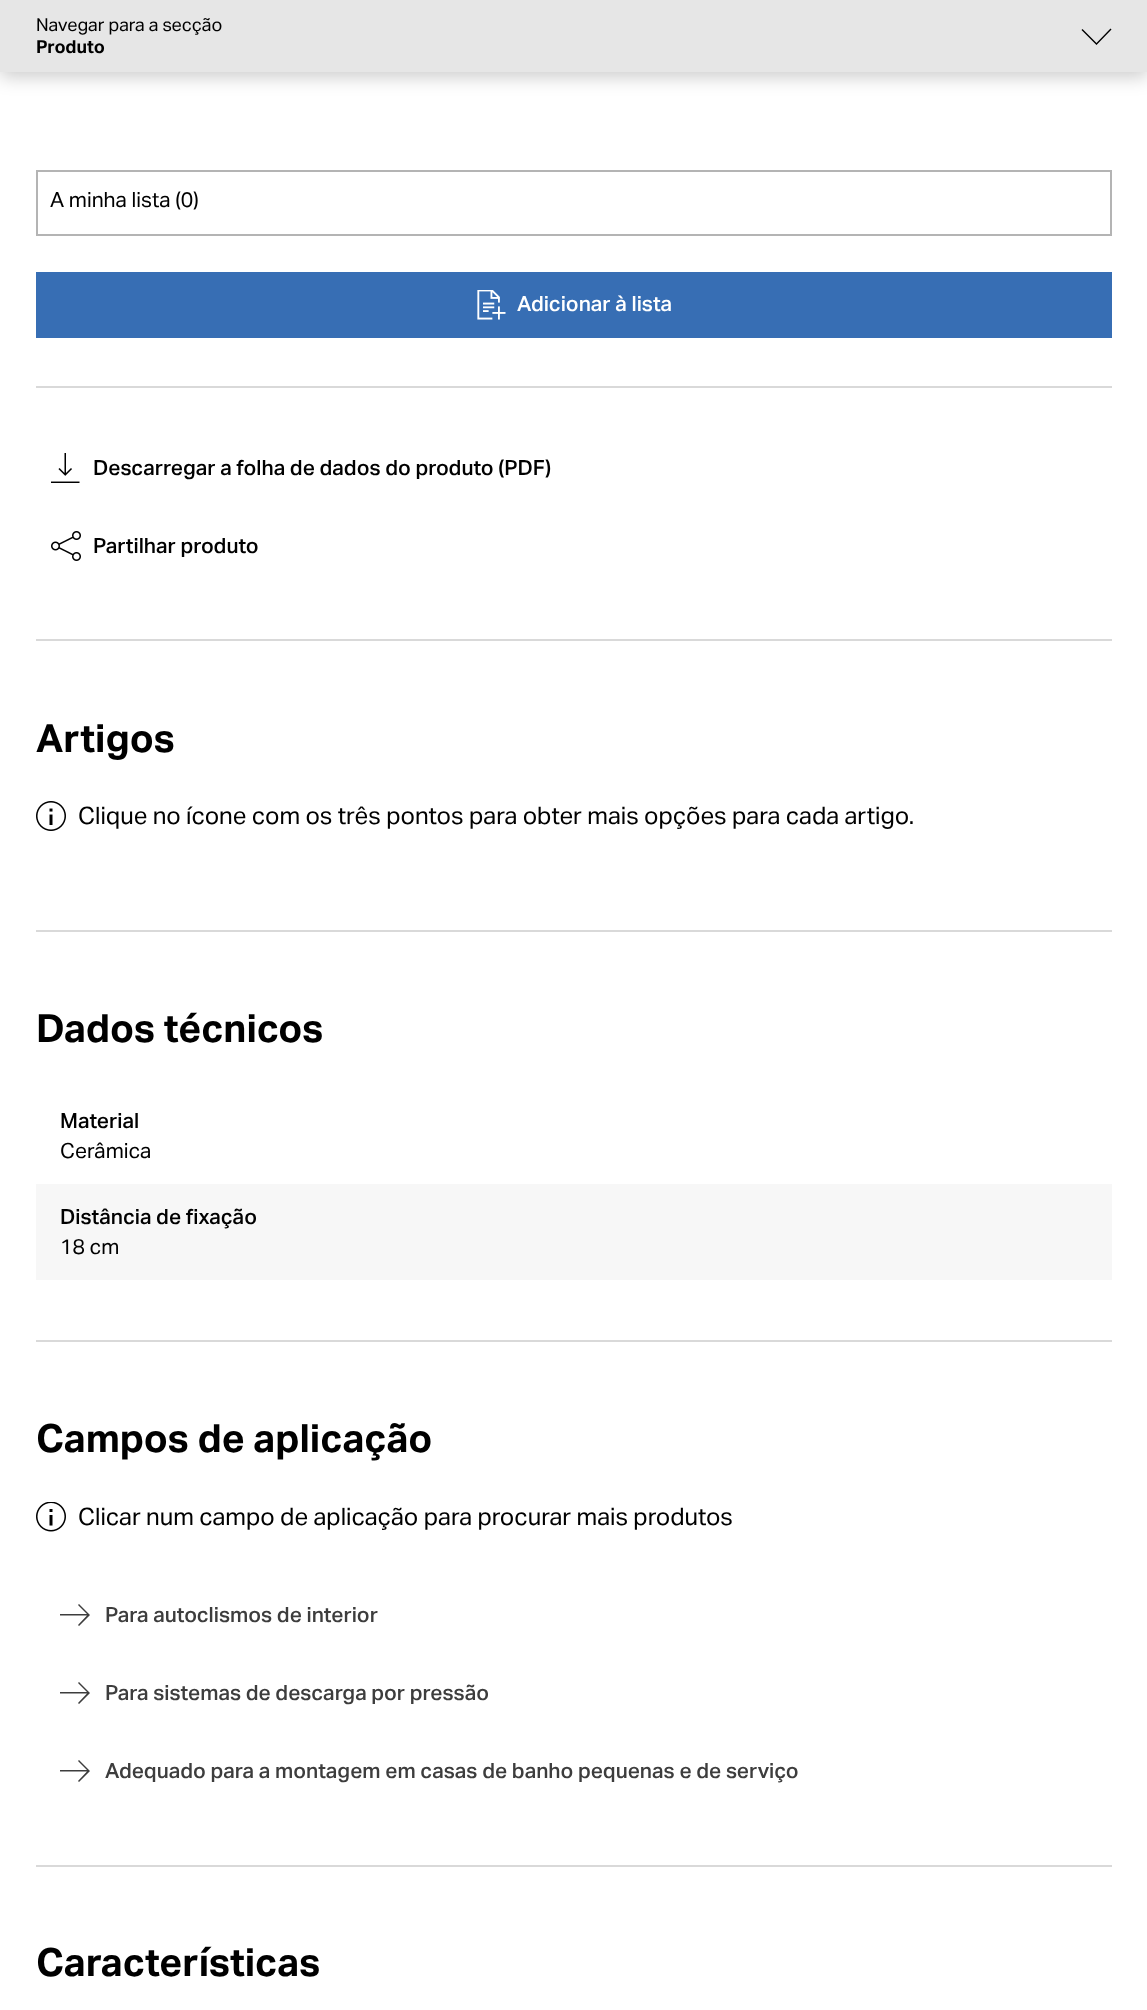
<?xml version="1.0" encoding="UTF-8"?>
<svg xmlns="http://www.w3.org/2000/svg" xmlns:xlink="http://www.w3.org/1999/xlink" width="1147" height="2010">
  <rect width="100%" height="100%" fill="#ffffff" />
  <rect y="5" width="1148" height="72" fill="#000000" fill-opacity="0.2" filter="blur(9px)" />
  <rect width="1147" height="72" fill="#e6e6e6" />
  <path d="M 1082.5 29 l -1 1 l 15 15 l 15 -15.5 l -1 -1 l -14 14.5 z" fill="#000000" fill-rule="evenodd" />
  <rect x="37" y="171" width="1074" height="64" fill="none" stroke="#b4b4b4" stroke-width="2" />
  <rect x="36" y="272" width="1076" height="66" fill="#376eb4" />
  <image x="477" y="290" width="29" height="30" xlink:href="image1.png" />
  <rect x="36" y="386" width="1076" height="2" fill="#d9d9d9" />
  <image x="51" y="453" width="29" height="30" xlink:href="image2.png" />
  <image x="51" y="531" width="30" height="30" xlink:href="image3.png" />
  <rect x="36" y="639" width="1076" height="2" fill="#d9d9d9" />
  <image x="36" y="801" width="30" height="30" xlink:href="image4.png" />
  <rect x="36" y="930" width="1076" height="2" fill="#d9d9d9" />
  <rect x="36" y="1184" width="1076" height="96" fill="#f7f7f7" />
  <rect x="36" y="1340" width="1076" height="2" fill="#d9d9d9" />
  <image x="36" y="1502" width="30" height="30" xlink:href="image5.png" />
  <path d="M 79 1626 l -1 -1 l 9 -9.5 h -27 v -1.5 h 27 l -9 -9 l 1 -1 l 11 11 z" fill="#3d3d3d" fill-rule="evenodd" />
  <path d="M 79 1704 l -1 -1 l 9 -9.5 h -27 v -1.5 h 27 l -9 -9 l 1 -1 l 11 11 z" fill="#3d3d3d" fill-rule="evenodd" />
  <path d="M 79 1782 l -1 -1 l 9 -9.5 h -27 v -1.5 h 27 l -9 -9 l 1 -1 l 11 11 z" fill="#3d3d3d" fill-rule="evenodd" />
  <rect x="36" y="1865" width="1076" height="2" fill="#d9d9d9" />
  <text x="36" y="31" style="font-family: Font; font-size: 18px; fill: #000000">Navegar para a secção</text>
  <text x="36" y="53" style="font-family: Font; font-size: 18px; font-weight: bold; fill: #000000">Produto</text>
  <text x="50" y="207" style="font-family: Font; font-size: 21px; fill: #000000">A minha lista (0)</text>
  <text x="517" y="311" style="font-family: Font; font-size: 21px; font-weight: 500; fill: #ffffff">Adicionar à lista</text>
  <text x="93" y="475" style="font-family: Font; font-size: 21px; font-weight: 500; fill: #000000">Descarregar a folha de dados do produto (PDF)</text>
  <text x="93" y="553" style="font-family: Font; font-size: 21px; font-weight: 500; fill: #000000">Partilhar produto</text>
  <text x="36" y="752" style="font-family: Font; font-size: 39px; font-weight: bold; fill: #000000">Artigos</text>
  <text x="78" y="824" style="font-family: Font; font-size: 24px; fill: #000000">Clique no ícone com os três pontos para obter mais opções para cada artigo.</text>
  <text x="36" y="1042" style="font-family: Font; font-size: 39px; font-weight: bold; fill: #000000">Dados técnicos</text>
  <text x="60" y="1128" style="font-family: Font; font-size: 21px; font-weight: 500; fill: #000000">Material</text>
  <text x="60" y="1158" style="font-family: Font; font-size: 21px; fill: #000000">Cerâmica</text>
  <text x="60" y="1224" style="font-family: Font; font-size: 21px; font-weight: 500; fill: #000000">Distância de fixação</text>
  <text x="60" y="1254" style="font-family: Font; font-size: 21px; fill: #000000">18 cm</text>
  <text x="36" y="1452" style="font-family: Font; font-size: 39px; font-weight: bold; fill: #000000">Campos de aplicação</text>
  <text x="78" y="1525" style="font-family: Font; font-size: 24px; fill: #000000">Clicar num campo de aplicação para procurar mais produtos</text>
  <text x="105" y="1622" style="font-family: Font; font-size: 21px; font-weight: 500; fill: #3d3d3d">Para autoclismos de interior</text>
  <text x="105" y="1700" style="font-family: Font; font-size: 21px; font-weight: 500; fill: #3d3d3d">Para sistemas de descarga por pressão</text>
  <text x="105" y="1778" style="font-family: Font; font-size: 21px; font-weight: 500; fill: #3d3d3d">Adequado para a montagem em casas de banho pequenas e de serviço</text>
  <text x="36" y="1976" style="font-family: Font; font-size: 39px; font-weight: bold; fill: #000000">Características</text>
</svg>
